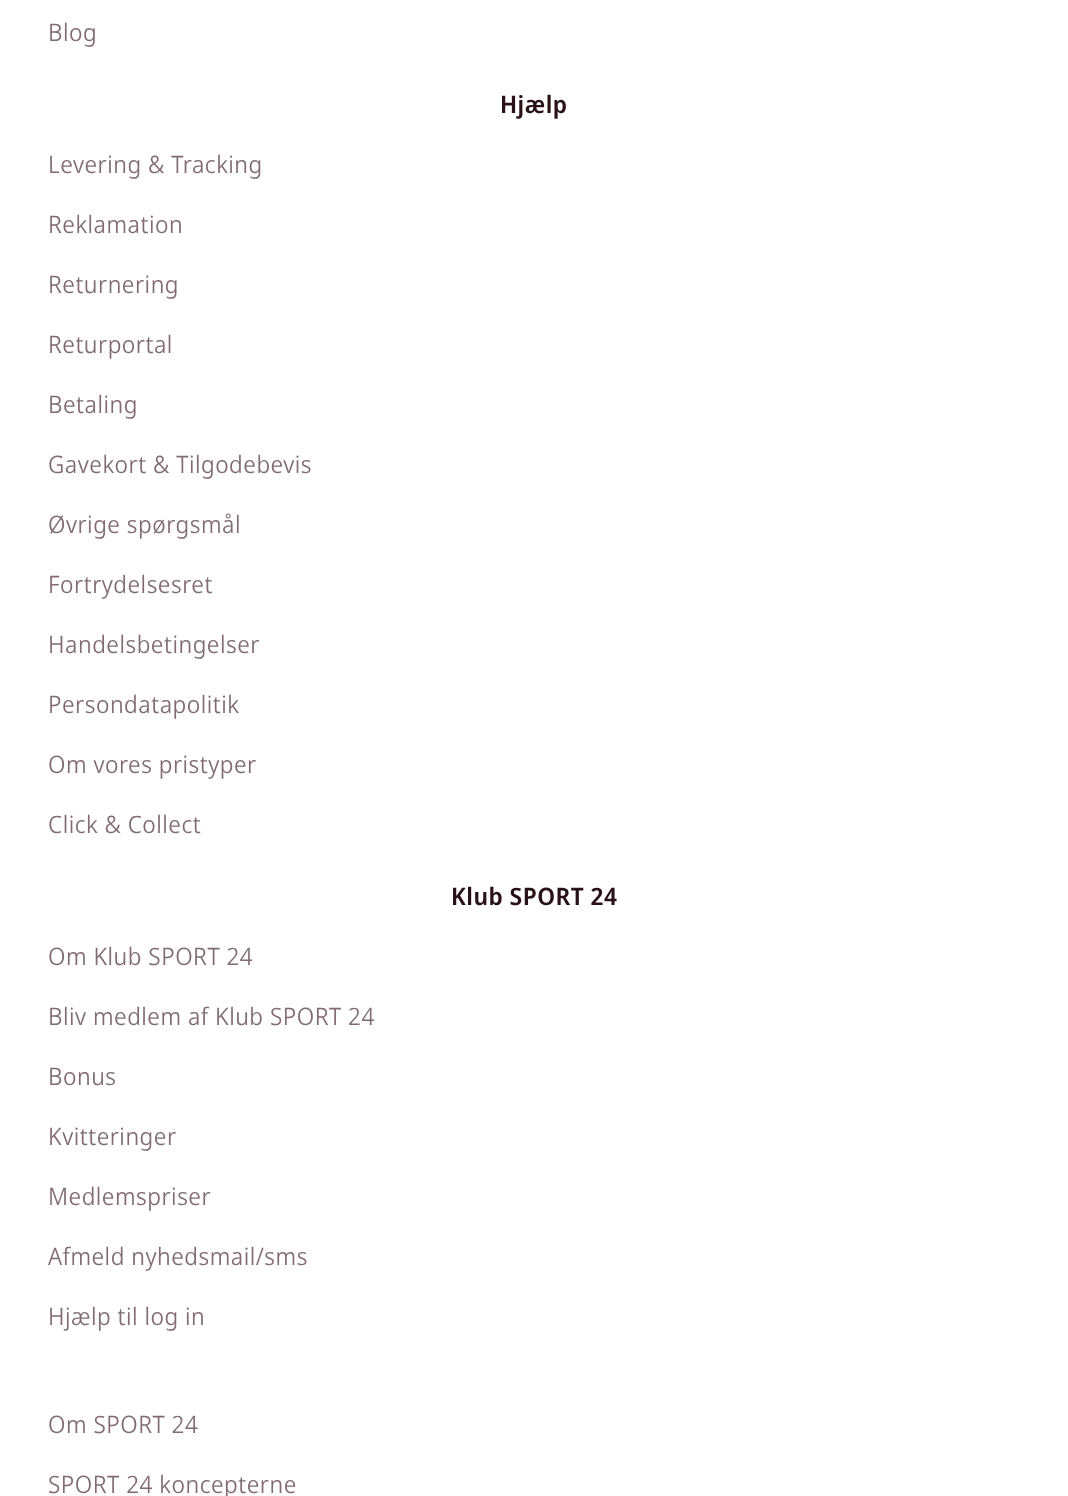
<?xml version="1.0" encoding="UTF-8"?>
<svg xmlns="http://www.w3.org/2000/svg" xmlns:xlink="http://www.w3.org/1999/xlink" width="1068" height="1496">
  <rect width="100%" height="100%" fill="#ffffff" />
  <text x="48" y="41" style="font-family: Noto Sans Display; font-size: 24px; font-weight: 300; letter-spacing: 0.5px; fill: #806b73">Blog</text>
  <text x="500" y="113" style="font-family: Noto Sans Display; font-size: 24px; font-weight: 600; letter-spacing: 0.5px; fill: #281117">Hjælp</text>
  <text x="48" y="173" style="font-family: Noto Sans Display; font-size: 24px; font-weight: 300; letter-spacing: 0.5px; fill: #806b73">Levering &amp; Tracking</text>
  <text x="48" y="233" style="font-family: Noto Sans Display; font-size: 24px; font-weight: 300; letter-spacing: 0.5px; fill: #806b73">Reklamation</text>
  <text x="48" y="293" style="font-family: Noto Sans Display; font-size: 24px; font-weight: 300; letter-spacing: 0.5px; fill: #806b73">Returnering</text>
  <text x="48" y="353" style="font-family: Noto Sans Display; font-size: 24px; font-weight: 300; letter-spacing: 0.5px; fill: #806b73">Returportal</text>
  <text x="48" y="413" style="font-family: Noto Sans Display; font-size: 24px; font-weight: 300; letter-spacing: 0.5px; fill: #806b73">Betaling</text>
  <text x="48" y="473" style="font-family: Noto Sans Display; font-size: 24px; font-weight: 300; letter-spacing: 0.5px; fill: #806b73">Gavekort &amp; Tilgodebevis</text>
  <text x="48" y="533" style="font-family: Noto Sans Display; font-size: 24px; font-weight: 300; letter-spacing: 0.5px; fill: #806b73">Øvrige spørgsmål</text>
  <text x="48" y="593" style="font-family: Noto Sans Display; font-size: 24px; font-weight: 300; letter-spacing: 0.5px; fill: #806b73">Fortrydelsesret</text>
  <text x="48" y="653" style="font-family: Noto Sans Display; font-size: 24px; font-weight: 300; letter-spacing: 0.5px; fill: #806b73">Handelsbetingelser</text>
  <text x="48" y="713" style="font-family: Noto Sans Display; font-size: 24px; font-weight: 300; letter-spacing: 0.5px; fill: #806b73">Persondatapolitik</text>
  <text x="48" y="773" style="font-family: Noto Sans Display; font-size: 24px; font-weight: 300; letter-spacing: 0.5px; fill: #806b73">Om vores pristyper</text>
  <text x="48" y="833" style="font-family: Noto Sans Display; font-size: 24px; font-weight: 300; letter-spacing: 0.5px; fill: #806b73">Click &amp; Collect</text>
  <text x="451" y="905" style="font-family: Noto Sans Display; font-size: 24px; font-weight: 600; letter-spacing: 0.5px; fill: #281117">Klub SPORT 24</text>
  <text x="48" y="965" style="font-family: Noto Sans Display; font-size: 24px; font-weight: 300; letter-spacing: 0.5px; fill: #806b73">Om Klub SPORT 24</text>
  <text x="48" y="1025" style="font-family: Noto Sans Display; font-size: 24px; font-weight: 300; letter-spacing: 0.5px; fill: #806b73">Bliv medlem af Klub SPORT 24</text>
  <text x="48" y="1085" style="font-family: Noto Sans Display; font-size: 24px; font-weight: 300; letter-spacing: 0.5px; fill: #806b73">Bonus</text>
  <text x="48" y="1145" style="font-family: Noto Sans Display; font-size: 24px; font-weight: 300; letter-spacing: 0.5px; fill: #806b73">Kvitteringer</text>
  <text x="48" y="1205" style="font-family: Noto Sans Display; font-size: 24px; font-weight: 300; letter-spacing: 0.5px; fill: #806b73">Medlemspriser</text>
  <text x="48" y="1265" style="font-family: Noto Sans Display; font-size: 24px; font-weight: 300; letter-spacing: 0.5px; fill: #806b73">Afmeld nyhedsmail/sms</text>
  <text x="48" y="1325" style="font-family: Noto Sans Display; font-size: 24px; font-weight: 300; letter-spacing: 0.5px; fill: #806b73">Hjælp til log in</text>
  <text x="48" y="1433" style="font-family: Noto Sans Display; font-size: 24px; font-weight: 300; letter-spacing: 0.5px; fill: #806b73">Om SPORT 24</text>
  <text x="48" y="1493" style="font-family: Noto Sans Display; font-size: 24px; font-weight: 300; letter-spacing: 0.5px; fill: #806b73">SPORT 24 koncepterne</text>
</svg>
